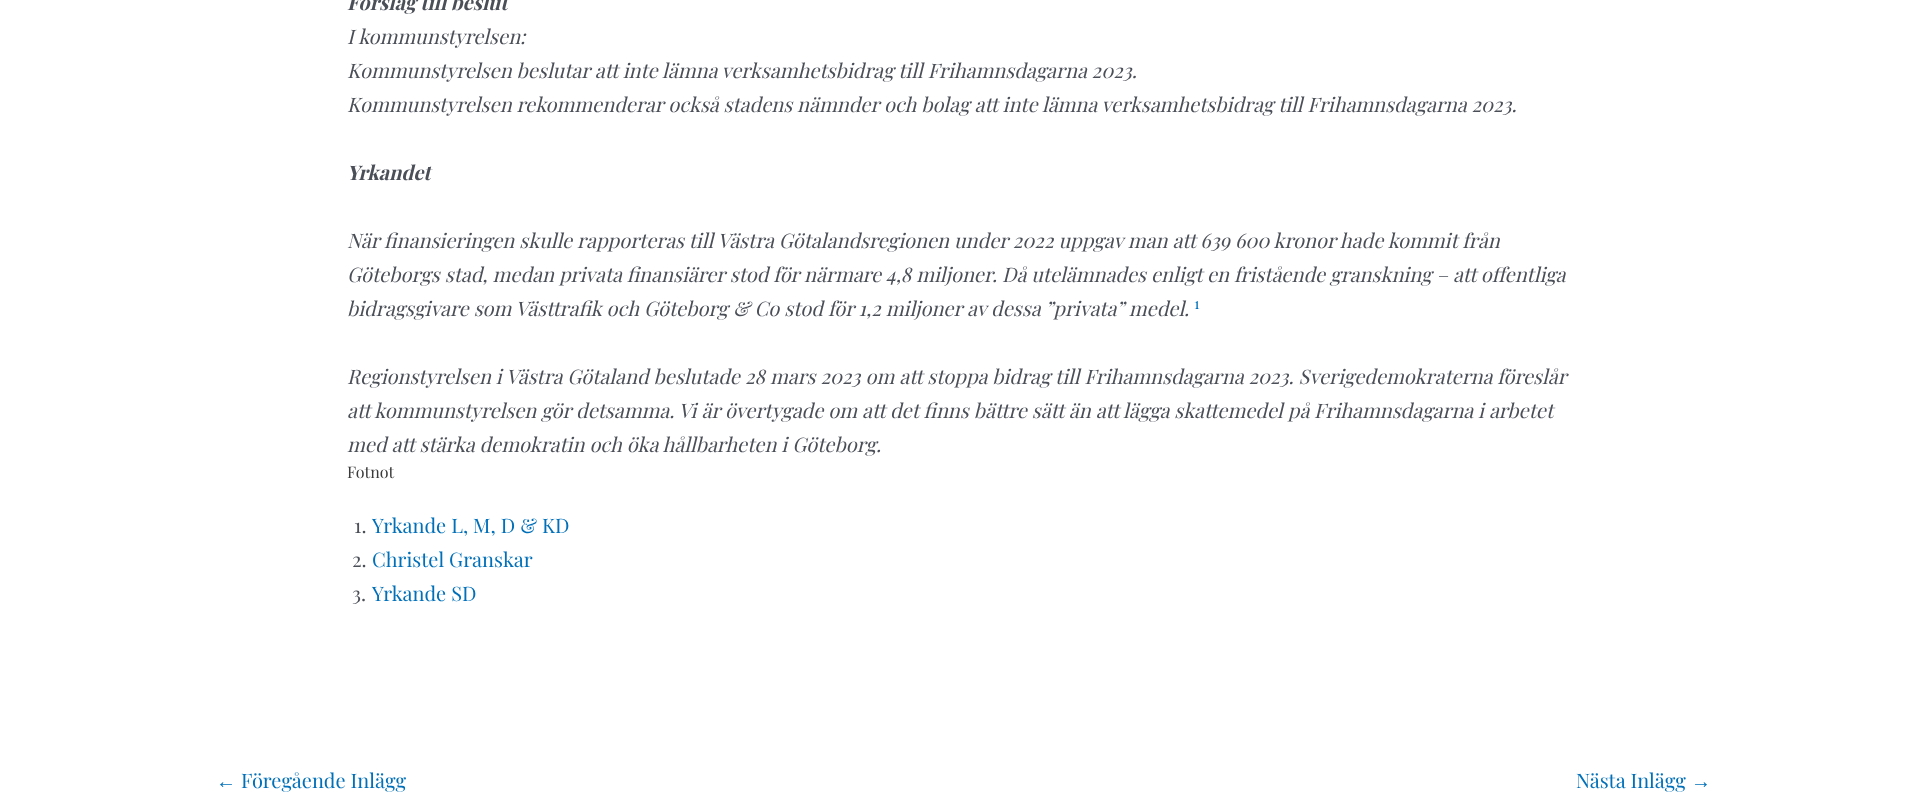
<?xml version="1.0" encoding="UTF-8"?>
<svg xmlns="http://www.w3.org/2000/svg" xmlns:xlink="http://www.w3.org/1999/xlink" width="1926" height="803">
  <rect width="100%" height="100%" fill="#ffffff" />
  <text x="347" y="10" style="font-family: Playfair Display; font-size: 20px; font-weight: bold; font-style: italic; fill: #4b4f58">Förslag till beslut</text>
  <text x="347" y="44" style="font-family: Playfair Display; font-size: 20px; font-style: italic; fill: #4b4f58">I kommunstyrelsen:</text>
  <text x="347" y="78" style="font-family: Playfair Display; font-size: 20px; font-style: italic; fill: #4b4f58">Kommunstyrelsen beslutar att inte lämna verksamhetsbidrag till Frihamnsdagarna 2023.</text>
  <text x="347" y="112" style="font-family: Playfair Display; font-size: 20px; font-style: italic; fill: #4b4f58">Kommunstyrelsen rekommenderar också stadens nämnder och bolag att inte lämna verksamhetsbidrag till Frihamnsdagarna 2023.</text>
  <text x="347" y="180" style="font-family: Playfair Display; font-size: 20px; font-weight: bold; font-style: italic; fill: #4b4f58">Yrkandet</text>
  <text x="347" y="248" style="font-family: Playfair Display; font-size: 20px; font-style: italic; fill: #4b4f58">När finansieringen skulle rapporteras till Västra Götalandsregionen under 2022 uppgav man att 639 600 kronor hade kommit från</text>
  <text x="347" y="282" style="font-family: Playfair Display; font-size: 20px; font-style: italic; fill: #4b4f58">Göteborgs stad, medan privata finansiärer stod för närmare 4,8 miljoner. Då utelämnades enligt en fristående granskning – att offentliga</text>
  <text x="347" y="316" style="font-family: Playfair Display; font-size: 20px; font-style: italic; fill: #4b4f58">bidragsgivare som Västtrafik och Göteborg &amp; Co stod för 1,2 miljoner av dessa ”privata” medel.</text>
  <text x="1194" y="309" style="font-family: Playfair Display; font-size: 15px; fill: #0170b9">1</text>
  <text x="347" y="384" style="font-family: Playfair Display; font-size: 20px; font-style: italic; fill: #4b4f58">Regionstyrelsen i Västra Götaland beslutade 28 mars 2023 om att stoppa bidrag till Frihamnsdagarna 2023. Sverigedemokraterna föreslår</text>
  <text x="347" y="418" style="font-family: Playfair Display; font-size: 20px; font-style: italic; fill: #4b4f58">att kommunstyrelsen gör detsamma. Vi är övertygade om att det finns bättre sätt än att lägga skattemedel på Frihamnsdagarna i arbetet</text>
  <text x="347" y="452" style="font-family: Playfair Display; font-size: 20px; font-style: italic; fill: #4b4f58">med att stärka demokratin och öka hållbarheten i Göteborg.</text>
  <text x="347" y="478" style="font-family: Playfair Display; font-size: 16px; fill: #3a3a3a">Fotnot</text>
  <text x="354" y="533" style="font-family: Playfair Display; font-size: 20px; fill: #4b4f58">1.</text>
  <text x="372" y="533" style="font-family: Playfair Display; font-size: 20px; fill: #0170b9">Yrkande L, M, D &amp; KD</text>
  <text x="352" y="567" style="font-family: Playfair Display; font-size: 20px; fill: #4b4f58">2.</text>
  <text x="372" y="567" style="font-family: Playfair Display; font-size: 20px; fill: #0170b9">Christel Granskar</text>
  <text x="352" y="601" style="font-family: Playfair Display; font-size: 20px; fill: #4b4f58">3.</text>
  <text x="372" y="601" style="font-family: Playfair Display; font-size: 20px; fill: #0170b9">Yrkande SD</text>
  <text x="216" y="788" style="font-family: Liberation Serif; font-size: 20px; fill: #0170b9">←</text>
  <text x="241" y="788" style="font-family: Playfair Display; font-size: 20px; fill: #0170b9">Föregående Inlägg</text>
  <text x="1576" y="788" style="font-family: Playfair Display; font-size: 20px; fill: #0170b9">Nästa Inlägg</text>
  <text x="1691" y="788" style="font-family: Liberation Serif; font-size: 20px; fill: #0170b9">→</text>
</svg>
